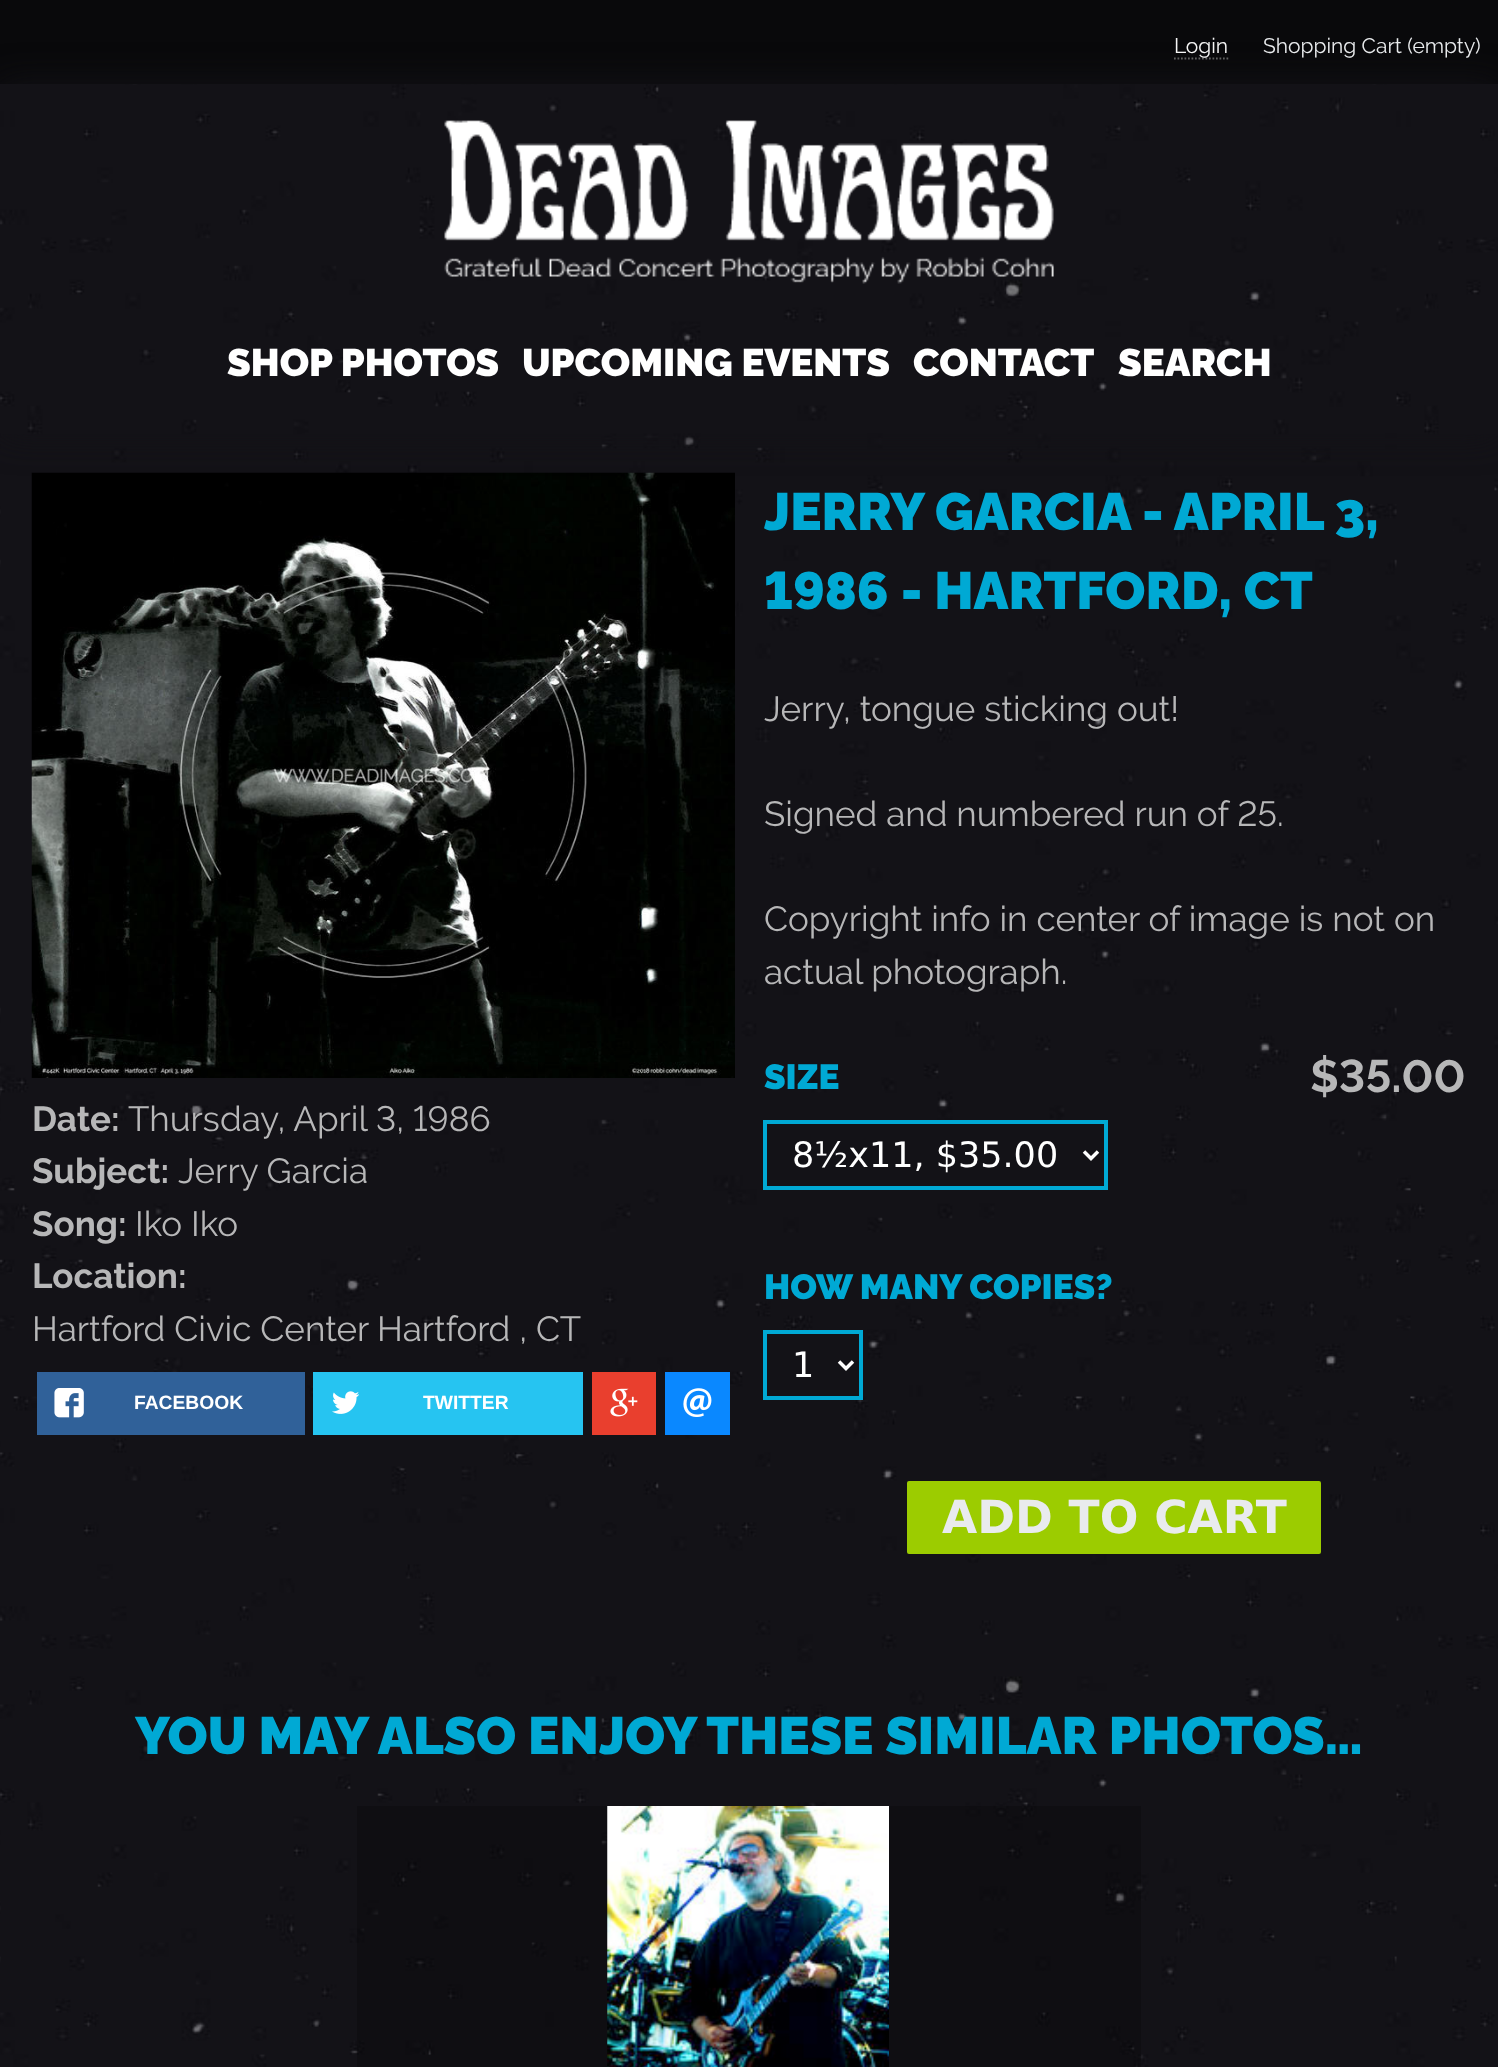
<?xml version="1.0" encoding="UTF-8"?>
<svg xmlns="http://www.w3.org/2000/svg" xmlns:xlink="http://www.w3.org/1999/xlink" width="1498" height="2067">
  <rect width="100%" height="100%" fill="#ffffff" />
  <image x="0" y="434" width="1498" height="1633" xlink:href="image1.png" />
  <rect width="1498" height="84" fill="#09090b" />
  <path d="M 1174 58.5 h 54.5" fill="none" stroke="#666666" stroke-width="1.8" stroke-dasharray="1.75 1.75" />
  <image x="31" y="472" width="704" height="606" xlink:href="image4.png" />
  <rect y="84" width="1498" height="350" fill="#131217" filter="blur(17.5px)" />
  <image x="0" y="84" width="1498" height="350" xlink:href="image2.png" />
  <image x="444" y="120" width="610" height="164" xlink:href="image3.png" />
  <rect x="37" y="1372" width="268" height="63" fill="#306199" />
  <image x="54" y="1388" width="30" height="30" xlink:href="image5.png" />
  <rect x="313" y="1372" width="270" height="63" fill="#26c4f1" />
  <image x="332" y="1391" width="27" height="23" xlink:href="image6.png" />
  <rect x="592" y="1372" width="64" height="63" fill="#e93f2e" />
  <image x="610" y="1388" width="28" height="29" xlink:href="image7.png" />
  <rect x="665" y="1372" width="65" height="63" fill="#0a88ff" />
  <image x="683" y="1388" width="29" height="29" xlink:href="image8.png" />
  <rect x="765" y="1122" width="341" height="66" fill="#131217" stroke="#00a9d4" stroke-width="4" />
  <path d="M 1084 1151.5 l 7 7 l 7 -7" fill="none" stroke="#ffffff" stroke-width="3.5" />
  <rect x="765" y="1332" width="96" height="66" fill="#131217" stroke="#00a9d4" stroke-width="4" />
  <path d="M 839 1361.5 l 7 7 l 7 -7" fill="none" stroke="#ffffff" stroke-width="3.5" />
  <rect x="907" y="1481" width="414" height="73" rx="2" fill="#9ccc00" />
  <rect x="357" y="1806" width="784" height="261" fill="#000000" fill-opacity="0.2" />
  <image x="607" y="1806" width="282" height="261" xlink:href="image9.png" />
  <text x="1174" y="53" style="font-family: Raleway; font-size: 21px; fill: #f5f5f5">Login</text>
  <text x="1263" y="53" style="font-family: Raleway; font-size: 21px; fill: #e9ebed">Shopping Cart (empty)</text>
  <text x="227" y="376" style="font-family: Raleway; font-size: 38.5px; font-weight: 900; fill: #ffffff">SHOP PHOTOS</text>
  <text x="522" y="376" style="font-family: Raleway; font-size: 38.5px; font-weight: 900; fill: #ffffff">UPCOMING EVENTS</text>
  <text x="913" y="376" style="font-family: Raleway; font-size: 38.5px; font-weight: 900; fill: #ffffff">CONTACT</text>
  <text x="1118" y="376" style="font-family: Raleway; font-size: 38.5px; font-weight: 900; fill: #ffffff">SEARCH</text>
  <text x="32" y="1131" style="font-family: Raleway; font-size: 35px; font-weight: bold; fill: #b7b7b8">Date:</text>
  <text x="128" y="1131" style="font-family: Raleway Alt; font-size: 35px; fill: #b7b7b8">Thursday, April 3, 1986</text>
  <text x="32" y="1183" style="font-family: Raleway; font-size: 35px; font-weight: bold; fill: #b7b7b8">Subject:</text>
  <text x="178" y="1183" style="font-family: Raleway; font-size: 35px; fill: #b7b7b8">Jerry Garcia</text>
  <text x="32" y="1236" style="font-family: Raleway; font-size: 35px; font-weight: bold; fill: #b7b7b8">Song:</text>
  <text x="135" y="1236" style="font-family: Raleway; font-size: 35px; fill: #b7b7b8">Iko Iko</text>
  <text x="32" y="1288" style="font-family: Raleway; font-size: 35px; font-weight: bold; fill: #b7b7b8">Location:</text>
  <text x="32" y="1341" style="font-family: Raleway; font-size: 35px; fill: #b7b7b8">Hartford Civic Center</text>
  <text x="377" y="1341" style="font-family: Raleway; font-size: 35px; fill: #b7b7b8">Hartford , CT</text>
  <text x="134" y="1409" style="font-family: Liberation Sans; font-size: 19.25px; font-weight: bold; fill: #ffffff">FACEBOOK</text>
  <text x="423" y="1409" style="font-family: Liberation Sans; font-size: 19.25px; font-weight: bold; fill: #ffffff">TWITTER</text>
  <text x="764" y="530" style="font-family: Raleway; font-size: 52.5px; font-weight: 900; fill: #00a9d4">JERRY GARCIA - APRIL 3,</text>
  <text x="764" y="609" style="font-family: Raleway Alt; font-size: 52.5px; font-weight: 900; fill: #00a9d4">1986 - HARTFORD, CT</text>
  <text x="764" y="721" style="font-family: Raleway; font-size: 35px; fill: #b7b7b8">Jerry, tongue sticking out!</text>
  <text x="764" y="826" style="font-family: Raleway Alt; font-size: 35px; fill: #b7b7b8">Signed and numbered run of 25.</text>
  <text x="764" y="931" style="font-family: Raleway; font-size: 35px; fill: #b7b7b8">Copyright info in center of image is not on</text>
  <text x="764" y="984" style="font-family: Raleway; font-size: 35px; fill: #b7b7b8">actual photograph.</text>
  <text x="764" y="1089" style="font-family: Raleway; font-size: 35px; font-weight: 900; fill: #00a9d4">SIZE</text>
  <text x="792" y="1167" style="font-family: DejaVu Sans; font-size: 35px; fill: #ffffff">8½x11, $35.00</text>
  <text x="764" y="1299" style="font-family: Raleway; font-size: 35px; font-weight: 900; fill: #00a9d4">HOW MANY COPIES?</text>
  <text x="792" y="1377" style="font-family: DejaVu Sans; font-size: 35px; fill: #ffffff">1</text>
  <text x="942" y="1533" style="font-family: DejaVu Sans; font-size: 45.5px; font-weight: bold; fill: #e9ebed">ADD TO CART</text>
  <text x="1310" y="1092" style="font-family: Raleway Alt; font-size: 45.5px; font-weight: bold; fill: #b7b7b8">$35.00</text>
  <text x="135" y="1754" style="font-family: Raleway; font-size: 52.5px; font-weight: 900; fill: #00a9d4">YOU MAY ALSO ENJOY THESE SIMILAR PHOTOS…</text>
</svg>
